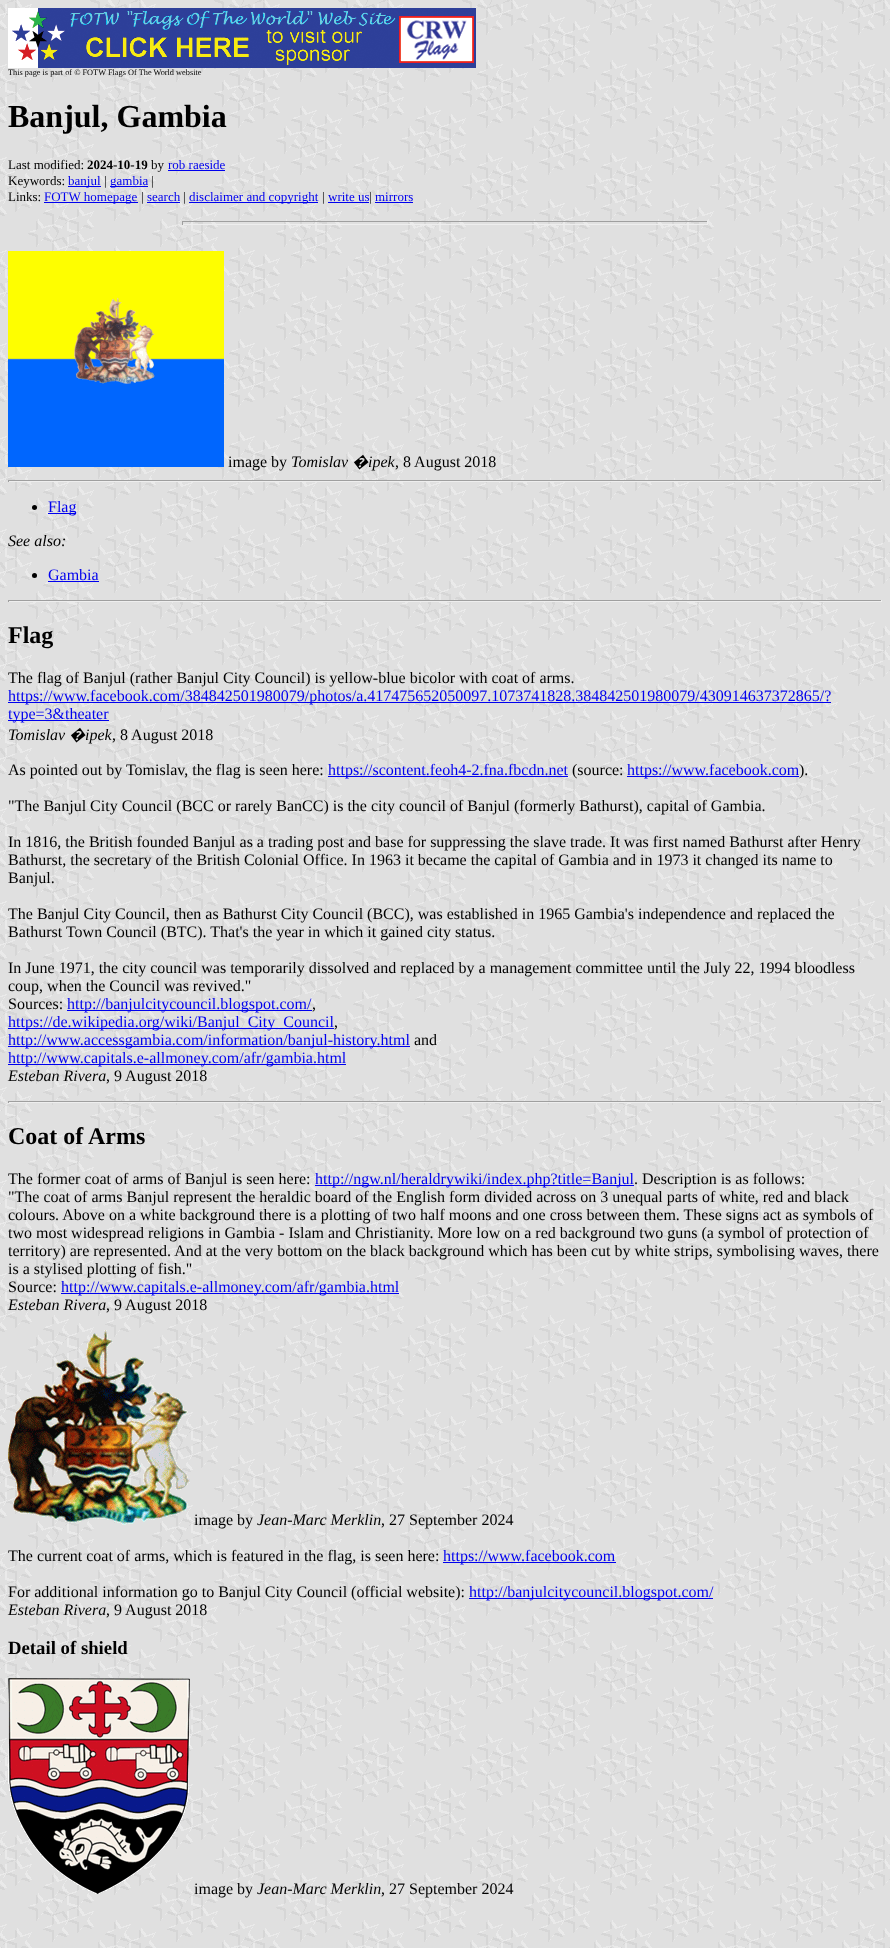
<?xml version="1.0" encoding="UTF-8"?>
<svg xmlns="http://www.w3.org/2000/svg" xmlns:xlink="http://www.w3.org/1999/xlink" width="890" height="1948">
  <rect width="100%" height="100%" fill="#ffffff" />
  <image x="0" y="0" width="890" height="1948" xlink:href="image1.png" />
  <image x="8" y="8" width="468" height="60" xlink:href="image2.png" />
  <rect x="168" y="170" width="57" height="1" fill="#0000ee" />
  <rect x="68" y="186" width="33" height="1" fill="#0000ee" />
  <rect x="110" y="186" width="38" height="1" fill="#0000ee" />
  <rect x="44" y="202" width="94" height="1" fill="#0000ee" />
  <rect x="147" y="202" width="33" height="1" fill="#0000ee" />
  <rect x="189" y="202" width="129" height="1" fill="#0000ee" />
  <rect x="328" y="202" width="41" height="1" fill="#0000ee" />
  <rect x="375" y="202" width="38" height="1" fill="#0000ee" />
  <rect x="182" y="221" width="526" height="1" fill="#9f9f9f" />
  <rect x="707" y="221" width="1" height="4" fill="#eeeeee" />
  <rect x="182" y="224" width="526" height="1" fill="#eeeeee" />
  <rect x="182" y="221" width="1" height="4" fill="#9f9f9f" />
  <image x="8" y="251" width="216" height="216" xlink:href="image3.png" />
  <rect x="8" y="480" width="874" height="1" fill="#9f9f9f" />
  <rect x="881" y="480" width="1" height="2" fill="#eeeeee" />
  <rect x="8" y="481" width="874" height="1" fill="#eeeeee" />
  <rect x="8" y="480" width="1" height="2" fill="#9f9f9f" />
  <circle cx="34.5" cy="507.5" r="2.5" fill="#000000" />
  <rect x="48" y="513" width="28" height="1" fill="#0000ee" />
  <circle cx="34.5" cy="575.5" r="2.5" fill="#000000" />
  <rect x="48" y="581" width="51" height="1" fill="#0000ee" />
  <rect x="8" y="600" width="874" height="1" fill="#9f9f9f" />
  <rect x="881" y="600" width="1" height="2" fill="#eeeeee" />
  <rect x="8" y="601" width="874" height="1" fill="#eeeeee" />
  <rect x="8" y="600" width="1" height="2" fill="#9f9f9f" />
  <rect x="8" y="702" width="823" height="1" fill="#0000ee" />
  <rect x="8" y="720" width="101" height="1" fill="#0000ee" />
  <rect x="328" y="776" width="240" height="1" fill="#0000ee" />
  <rect x="627" y="776" width="172" height="1" fill="#0000ee" />
  <rect x="67" y="1010" width="245" height="1" fill="#0000ee" />
  <rect x="8" y="1028" width="326" height="1" fill="#0000ee" />
  <rect x="8" y="1046" width="402" height="1" fill="#0000ee" />
  <rect x="8" y="1064" width="338" height="1" fill="#0000ee" />
  <rect x="8" y="1101" width="874" height="1" fill="#9f9f9f" />
  <rect x="881" y="1101" width="1" height="2" fill="#eeeeee" />
  <rect x="8" y="1102" width="874" height="1" fill="#eeeeee" />
  <rect x="8" y="1101" width="1" height="2" fill="#9f9f9f" />
  <rect x="315" y="1185" width="319" height="1" fill="#0000ee" />
  <rect x="61" y="1293" width="338" height="1" fill="#0000ee" />
  <image x="8" y="1330" width="182" height="195" xlink:href="image4.png" />
  <rect x="443" y="1562" width="173" height="1" fill="#0000ee" />
  <rect x="469" y="1598" width="244" height="1" fill="#0000ee" />
  <image x="8" y="1678" width="182" height="216" xlink:href="image5.png" />
  <text x="8" y="75" style="font-family: Liberation Serif; font-size: 8.3px; fill: #000000">This page is part of © FOTW Flags Of The World website</text>
  <text x="8" y="127" style="font-family: Liberation Serif; font-size: 32px; font-weight: bold; fill: #000000">Banjul, Gambia</text>
  <text x="8" y="169" style="font-family: Liberation Serif; font-size: 13px; fill: #000000">Last modified:</text>
  <text x="87" y="169" style="font-family: Liberation Serif; font-size: 13px; font-weight: bold; fill: #000000">2024-10-19</text>
  <text x="151" y="169" style="font-family: Liberation Serif; font-size: 13px; fill: #000000">by</text>
  <text x="168" y="169" style="font-family: Liberation Serif; font-size: 13px; fill: #0000ee">rob raeside</text>
  <text x="8" y="185" style="font-family: Liberation Serif; font-size: 13px; fill: #000000">Keywords:</text>
  <text x="68" y="185" style="font-family: Liberation Serif; font-size: 13px; fill: #0000ee">banjul</text>
  <text x="104" y="185" style="font-family: Liberation Serif; font-size: 13px; fill: #000000">|</text>
  <text x="110" y="185" style="font-family: Liberation Serif; font-size: 13px; fill: #0000ee">gambia</text>
  <text x="151" y="185" style="font-family: Liberation Serif; font-size: 13px; fill: #000000">|</text>
  <text x="8" y="201" style="font-family: Liberation Serif; font-size: 13px; fill: #000000">Links:</text>
  <text x="44" y="201" style="font-family: Liberation Serif; font-size: 13px; fill: #0000ee">FOTW homepage</text>
  <text x="141" y="201" style="font-family: Liberation Serif; font-size: 13px; fill: #000000">|</text>
  <text x="147" y="201" style="font-family: Liberation Serif; font-size: 13px; fill: #0000ee">search</text>
  <text x="183" y="201" style="font-family: Liberation Serif; font-size: 13px; fill: #000000">|</text>
  <text x="189" y="201" style="font-family: Liberation Serif; font-size: 13px; fill: #0000ee">disclaimer and copyright</text>
  <text x="322" y="201" style="font-family: Liberation Serif; font-size: 13px; fill: #000000">|</text>
  <text x="328" y="201" style="font-family: Liberation Serif; font-size: 13px; fill: #0000ee">write us</text>
  <text x="369" y="201" style="font-family: Liberation Serif; font-size: 13px; fill: #000000">|</text>
  <text x="375" y="201" style="font-family: Liberation Serif; font-size: 13px; fill: #0000ee">mirrors</text>
  <text x="228" y="467" style="font-family: Liberation Serif; font-size: 16px; fill: #000000">image by</text>
  <text x="291" y="467" style="font-family: Liberation Serif; font-size: 16px; font-style: italic; fill: #000000">Tomislav</text>
  <text x="352" y="467" style="font-family: Noto Sans; font-size: 16px; font-style: italic; fill: #000000">�</text>
  <text x="368" y="467" style="font-family: Liberation Serif; font-size: 16px; font-style: italic; fill: #000000">ipek</text>
  <text x="395" y="467" style="font-family: Liberation Serif; font-size: 16px; fill: #000000">, 8 August 2018</text>
  <text x="48" y="512" style="font-family: Liberation Serif; font-size: 16px; fill: #0000ee">Flag</text>
  <text x="8" y="546" style="font-family: Liberation Serif; font-size: 16px; font-style: italic; fill: #000000">See also:</text>
  <text x="48" y="580" style="font-family: Liberation Serif; font-size: 16px; fill: #0000ee">Gambia</text>
  <text x="8" y="643" style="font-family: Liberation Serif; font-size: 24px; font-weight: bold; fill: #000000">Flag</text>
  <text x="8" y="683" style="font-family: Liberation Serif; font-size: 16px; fill: #000000">The flag of Banjul (rather Banjul City Council) is yellow-blue bicolor with coat of arms.</text>
  <text x="8" y="701" style="font-family: Liberation Serif; font-size: 16px; fill: #0000ee">https://www.facebook.com/384842501980079/photos/a.417475652050097.1073741828.384842501980079/430914637372865/?</text>
  <text x="8" y="719" style="font-family: Liberation Serif; font-size: 16px; fill: #0000ee">type=3&amp;theater</text>
  <text x="8" y="740" style="font-family: Liberation Serif; font-size: 16px; font-style: italic; fill: #000000">Tomislav</text>
  <text x="69" y="740" style="font-family: Noto Sans; font-size: 16px; font-style: italic; fill: #000000">�</text>
  <text x="85" y="740" style="font-family: Liberation Serif; font-size: 16px; font-style: italic; fill: #000000">ipek</text>
  <text x="112" y="740" style="font-family: Liberation Serif; font-size: 16px; fill: #000000">, 8 August 2018</text>
  <text x="8" y="775" style="font-family: Liberation Serif; font-size: 16px; fill: #000000">As pointed out by Tomislav, the flag is seen here:</text>
  <text x="328" y="775" style="font-family: Liberation Serif; font-size: 16px; fill: #0000ee">https://scontent.feoh4-2.fna.fbcdn.net</text>
  <text x="572" y="775" style="font-family: Liberation Serif; font-size: 16px; fill: #000000">(source:</text>
  <text x="627" y="775" style="font-family: Liberation Serif; font-size: 16px; fill: #0000ee">https://www.facebook.com</text>
  <text x="799" y="775" style="font-family: Liberation Serif; font-size: 16px; fill: #000000">).</text>
  <text x="8" y="811" style="font-family: Liberation Serif; font-size: 16px; fill: #000000">"The Banjul City Council (BCC or rarely BanCC) is the city council of Banjul (formerly Bathurst), capital of Gambia.</text>
  <text x="8" y="847" style="font-family: Liberation Serif; font-size: 16px; fill: #000000">In 1816, the British founded Banjul as a trading post and base for suppressing the slave trade. It was first named Bathurst after Henry</text>
  <text x="8" y="865" style="font-family: Liberation Serif; font-size: 16px; fill: #000000">Bathurst, the secretary of the British Colonial Office. In 1963 it became the capital of Gambia and in 1973 it changed its name to</text>
  <text x="8" y="883" style="font-family: Liberation Serif; font-size: 16px; fill: #000000">Banjul.</text>
  <text x="8" y="919" style="font-family: Liberation Serif; font-size: 16px; fill: #000000">The Banjul City Council, then as Bathurst City Council (BCC), was established in 1965 Gambia's independence and replaced the</text>
  <text x="8" y="937" style="font-family: Liberation Serif; font-size: 16px; fill: #000000">Bathurst Town Council (BTC). That's the year in which it gained city status.</text>
  <text x="8" y="973" style="font-family: Liberation Serif; font-size: 16px; fill: #000000">In June 1971, the city council was temporarily dissolved and replaced by a management committee until the July 22, 1994 bloodless</text>
  <text x="8" y="991" style="font-family: Liberation Serif; font-size: 16px; fill: #000000">coup, when the Council was revived."</text>
  <text x="8" y="1009" style="font-family: Liberation Serif; font-size: 16px; fill: #000000">Sources:</text>
  <text x="67" y="1009" style="font-family: Liberation Serif; font-size: 16px; fill: #0000ee">http://banjulcitycouncil.blogspot.com/</text>
  <text x="312" y="1009" style="font-family: Liberation Serif; font-size: 16px; fill: #000000">,</text>
  <text x="8" y="1027" style="font-family: Liberation Serif; font-size: 16px; fill: #0000ee">https://de.wikipedia.org/wiki/Banjul_City_Council</text>
  <text x="334" y="1027" style="font-family: Liberation Serif; font-size: 16px; fill: #000000">,</text>
  <text x="8" y="1045" style="font-family: Liberation Serif; font-size: 16px; fill: #0000ee">http://www.accessgambia.com/information/banjul-history.html</text>
  <text x="414" y="1045" style="font-family: Liberation Serif; font-size: 16px; fill: #000000">and</text>
  <text x="8" y="1063" style="font-family: Liberation Serif; font-size: 16px; fill: #0000ee">http://www.capitals.e-allmoney.com/afr/gambia.html</text>
  <text x="8" y="1081" style="font-family: Liberation Serif; font-size: 16px; font-style: italic; fill: #000000">Esteban Rivera</text>
  <text x="106" y="1081" style="font-family: Liberation Serif; font-size: 16px; fill: #000000">, 9 August 2018</text>
  <text x="8" y="1144" style="font-family: Liberation Serif; font-size: 24px; font-weight: bold; fill: #000000">Coat of Arms</text>
  <text x="8" y="1184" style="font-family: Liberation Serif; font-size: 16px; fill: #000000">The former coat of arms of Banjul is seen here:</text>
  <text x="315" y="1184" style="font-family: Liberation Serif; font-size: 16px; fill: #0000ee">http://ngw.nl/heraldrywiki/index.php?title=Banjul</text>
  <text x="634" y="1184" style="font-family: Liberation Serif; font-size: 16px; fill: #000000">. Description is as follows:</text>
  <text x="8" y="1202" style="font-family: Liberation Serif; font-size: 16px; fill: #000000">"The coat of arms Banjul represent the heraldic board of the English form divided across on 3 unequal parts of white, red and black</text>
  <text x="8" y="1220" style="font-family: Liberation Serif; font-size: 16px; fill: #000000">colours. Above on a white background there is a plotting of two half moons and one cross between them. These signs act as symbols of</text>
  <text x="8" y="1238" style="font-family: Liberation Serif; font-size: 16px; fill: #000000">two most widespread religions in Gambia - Islam and Christianity. More low on a red background two guns (a symbol of protection of</text>
  <text x="8" y="1256" style="font-family: Liberation Serif; font-size: 16px; fill: #000000">territory) are represented. And at the very bottom on the black background which has been cut by white strips, symbolising waves, there</text>
  <text x="8" y="1274" style="font-family: Liberation Serif; font-size: 16px; fill: #000000">is a stylised plotting of fish."</text>
  <text x="8" y="1292" style="font-family: Liberation Serif; font-size: 16px; fill: #000000">Source:</text>
  <text x="61" y="1292" style="font-family: Liberation Serif; font-size: 16px; fill: #0000ee">http://www.capitals.e-allmoney.com/afr/gambia.html</text>
  <text x="8" y="1310" style="font-family: Liberation Serif; font-size: 16px; font-style: italic; fill: #000000">Esteban Rivera</text>
  <text x="106" y="1310" style="font-family: Liberation Serif; font-size: 16px; fill: #000000">, 9 August 2018</text>
  <text x="194" y="1525" style="font-family: Liberation Serif; font-size: 16px; fill: #000000">image by</text>
  <text x="257" y="1525" style="font-family: Liberation Serif; font-size: 16px; font-style: italic; fill: #000000">Jean-Marc Merklin</text>
  <text x="381" y="1525" style="font-family: Liberation Serif; font-size: 16px; fill: #000000">, 27 September 2024</text>
  <text x="8" y="1561" style="font-family: Liberation Serif; font-size: 16px; fill: #000000">The current coat of arms, which is featured in the flag, is seen here:</text>
  <text x="443" y="1561" style="font-family: Liberation Serif; font-size: 16px; fill: #0000ee">https://www.facebook.com</text>
  <text x="8" y="1597" style="font-family: Liberation Serif; font-size: 16px; fill: #000000">For additional information go to Banjul City Council (official website):</text>
  <text x="469" y="1597" style="font-family: Liberation Serif; font-size: 16px; fill: #0000ee">http://banjulcitycouncil.blogspot.com/</text>
  <text x="8" y="1615" style="font-family: Liberation Serif; font-size: 16px; font-style: italic; fill: #000000">Esteban Rivera</text>
  <text x="106" y="1615" style="font-family: Liberation Serif; font-size: 16px; fill: #000000">, 9 August 2018</text>
  <text x="8" y="1654" style="font-family: Liberation Serif; font-size: 18.75px; font-weight: bold; fill: #000000">Detail of shield</text>
  <text x="194" y="1894" style="font-family: Liberation Serif; font-size: 16px; fill: #000000">image by</text>
  <text x="257" y="1894" style="font-family: Liberation Serif; font-size: 16px; font-style: italic; fill: #000000">Jean-Marc Merklin</text>
  <text x="381" y="1894" style="font-family: Liberation Serif; font-size: 16px; fill: #000000">, 27 September 2024</text>
</svg>
